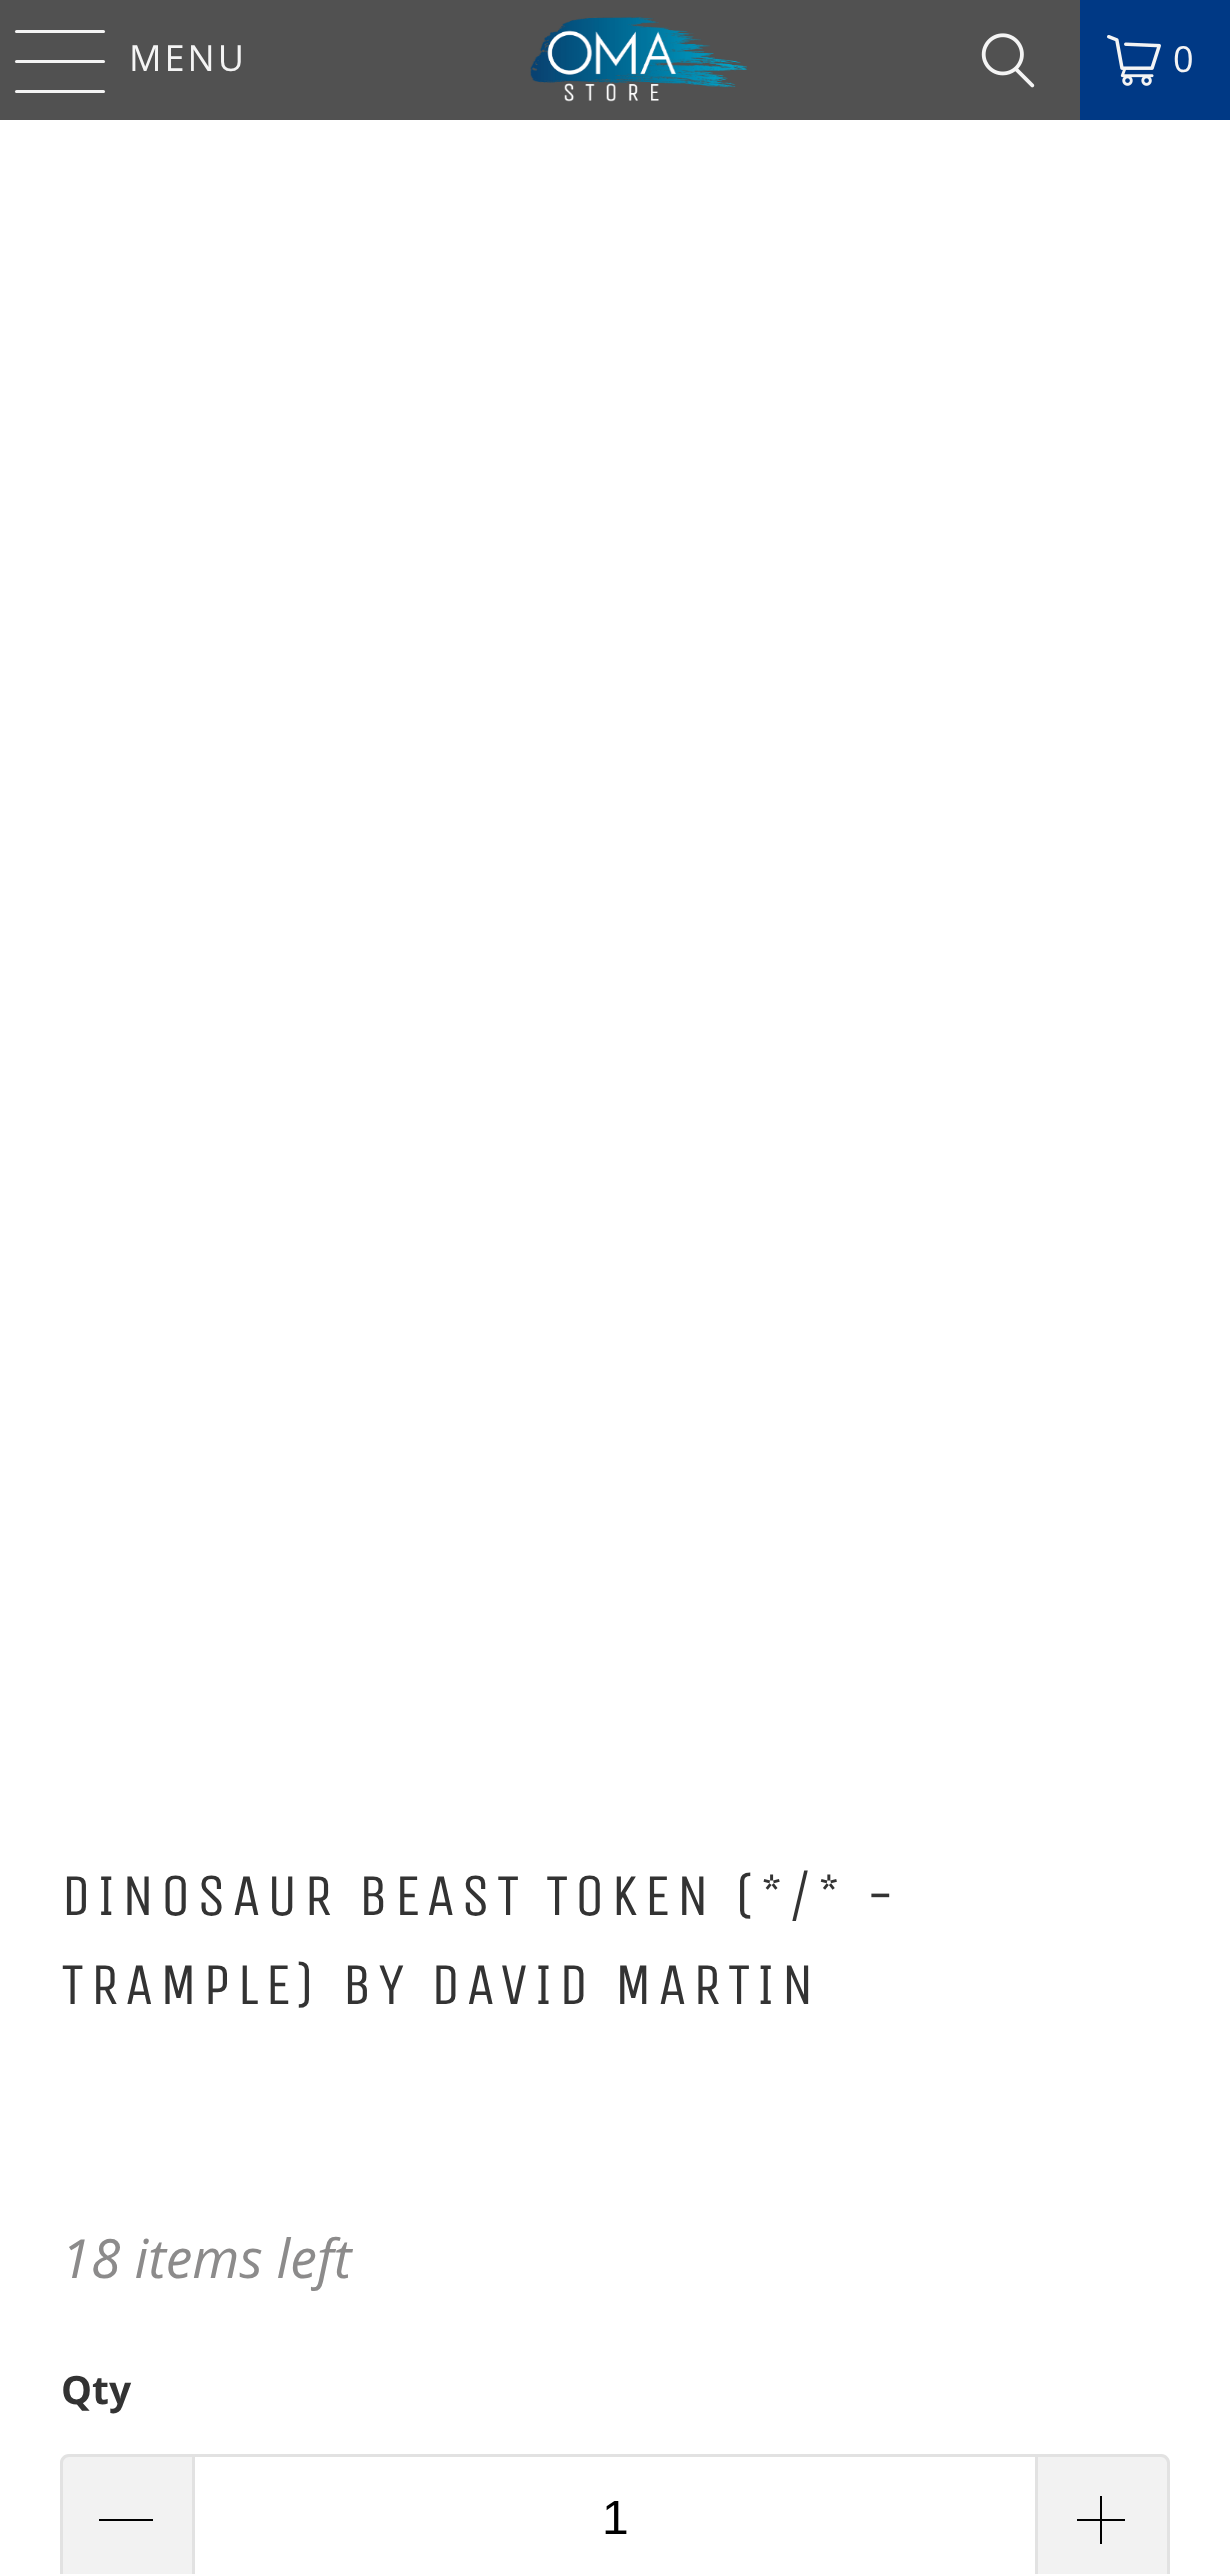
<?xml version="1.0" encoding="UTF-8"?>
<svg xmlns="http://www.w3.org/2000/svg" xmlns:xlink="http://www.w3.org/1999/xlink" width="1230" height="2574">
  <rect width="100%" height="100%" fill="#ffffff" />
  <rect width="1080" height="120" fill="#515151" />
  <rect x="15" y="30" width="90" height="3" rx="1.5" fill="#f4f4f4" />
  <rect x="15" y="60" width="90" height="3" rx="1.5" fill="#f4f4f4" />
  <rect x="15" y="90" width="90" height="3" rx="1.5" fill="#f4f4f4" />
  <image x="530" y="17" width="218" height="85" xlink:href="image1.png" />
  <image x="981" y="33" width="54" height="55" xlink:href="image2.png" />
  <rect x="1080" width="150" height="120" fill="#003985" />
  <image x="1107" y="35" width="54" height="51" xlink:href="image3.png" />
  <path d="M 69 2454 h 123 v 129 h -123 c -5 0 -9 -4 -9 -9 v -111 c 0 -5 4 -9 9 -9 z" fill="#f2f2f2" />
  <path d="M 69 2454 h 123 v 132 h -123 c -5 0 -9 -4 -9 -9 v -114 c 0 -5 4 -9 9 -9 z m 0 3 h 123 v 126 h -123 c -3 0 -6 -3 -6 -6 v -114 c 0 -3 3 -6 6 -6 z" fill="#e2e2e2" fill-rule="evenodd" />
  <rect x="99" y="2519" width="54" height="2" fill="#000000" />
  <rect x="193.5" y="2455.5" width="843" height="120" fill="none" stroke="#e2e2e2" stroke-width="3" />
  <path d="M 1038 2454 h 123 c 5 0 9 4 9 9 v 111 c 0 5 -4 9 -9 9 h -123 z" fill="#f2f2f2" />
  <path d="M 1038 2454 h 123 c 5 0 9 4 9 9 v 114 c 0 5 -4 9 -9 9 h -123 z m 0 3 h 123 c 3 0 6 3 6 6 v 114 c 0 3 -3 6 -6 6 h -123 z" fill="#e2e2e2" fill-rule="evenodd" />
  <path d="M 1125 2519 h -23 v -23 h -2 v 23 h -23 v 2 h 23 v 23 h 2 v -23 h 23 z" fill="#000000" />
  <text x="129" y="71" style="font-family: Open Sans; font-size: 36px; letter-spacing: 3px; fill: #f4f4f4">MENU</text>
  <text x="1173" y="72" style="font-family: Open Sans; font-size: 36px; letter-spacing: 3px; fill: #f4f4f4">0</text>
  <text x="61" y="1915" style="font-family: Unica One; font-size: 59.4px; letter-spacing: 6px; fill: #333333">DINOSAUR BEAST TOKEN (*/* -</text>
  <text x="61" y="2004" style="font-family: Unica One; font-size: 59.4px; letter-spacing: 6px; fill: #333333">TRAMPLE) BY DAVID MARTIN</text>
  <text x="61" y="2278" style="font-family: Open Sans; font-size: 54px; font-style: italic; fill: #8c8b8b">18 items left</text>
  <text x="61" y="2404" style="font-family: Open Sans; font-size: 39px; font-weight: bold; fill: #333333">Qty</text>
  <text x="602" y="2534" style="font-family: Liberation Sans; font-size: 48px; fill: #000000">1</text>
</svg>
